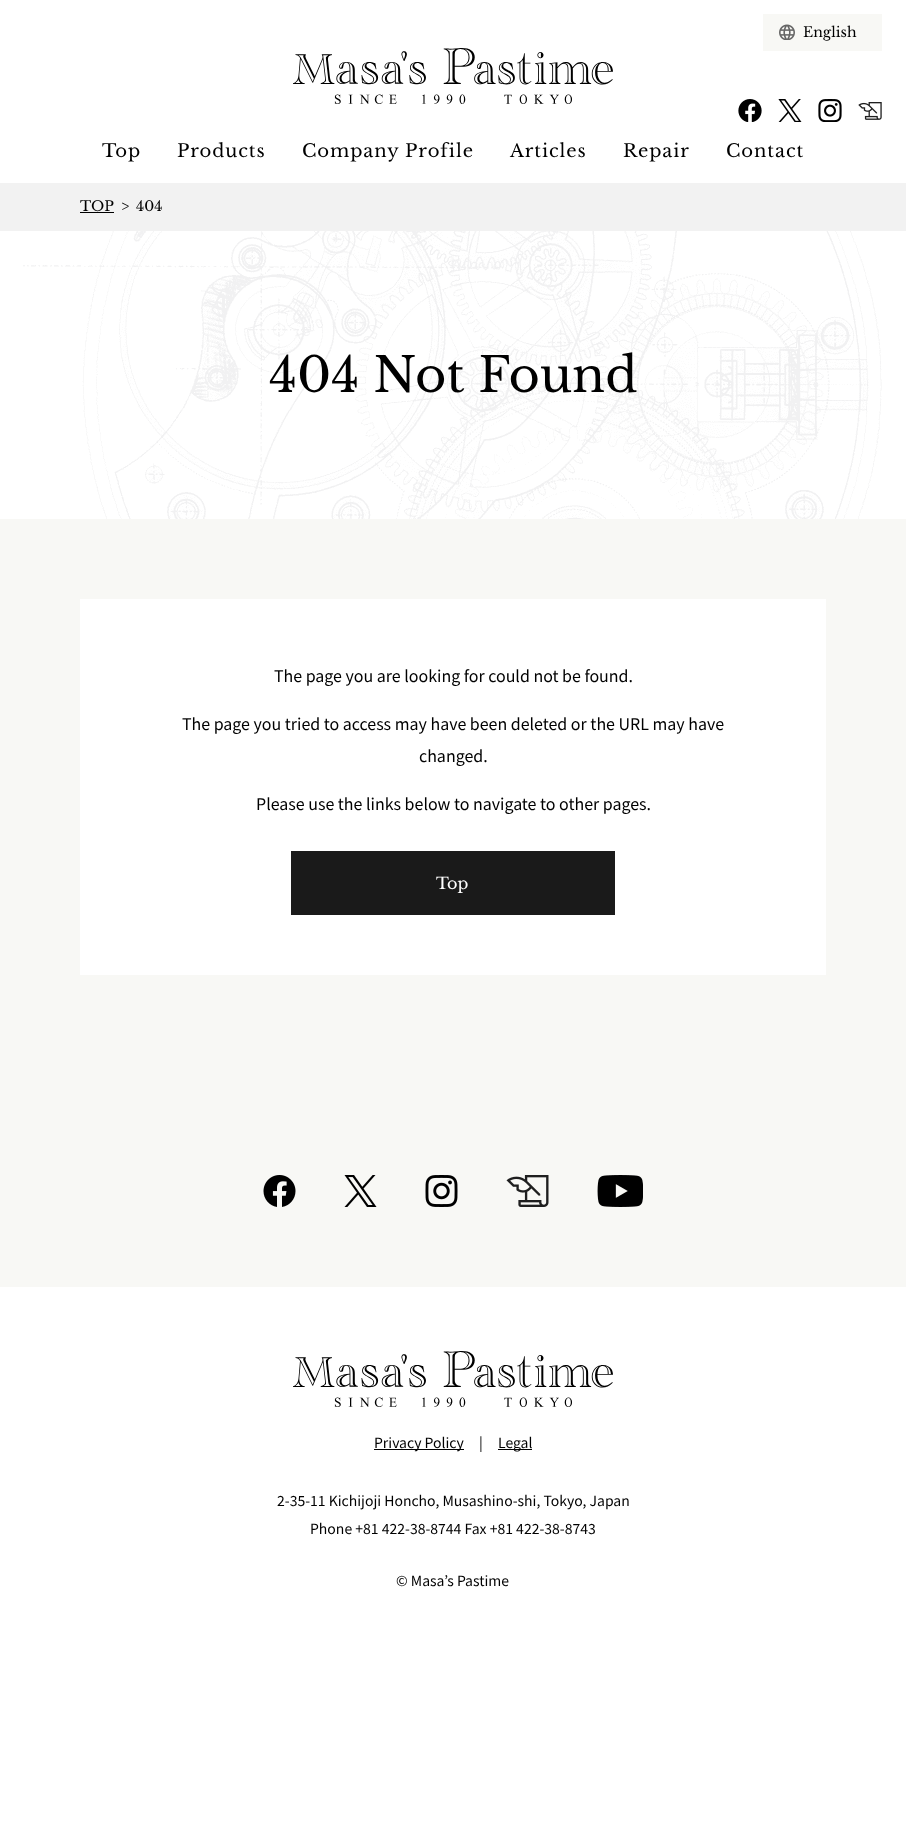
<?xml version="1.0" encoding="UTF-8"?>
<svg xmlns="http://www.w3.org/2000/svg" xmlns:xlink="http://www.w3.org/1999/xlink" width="906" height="1831">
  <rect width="100%" height="100%" fill="#ffffff" />
  <rect x="763" y="14" width="119" height="37" fill="#f8f8f5" />
  <image x="779" y="24" width="16" height="16" xlink:href="image1.png" />
  <image x="293" y="48" width="320" height="56" xlink:href="image2.png" />
  <image x="738" y="99" width="24" height="23" xlink:href="image3.png" />
  <image x="778" y="99" width="24" height="23" xlink:href="image4.png" />
  <image x="818" y="99" width="24" height="23" xlink:href="image5.png" />
  <image x="858" y="102" width="24" height="18" xlink:href="image6.png" />
  <rect y="183" width="906" height="48" fill="#f2f2f2" />
  <rect x="80" y="212" width="34" height="1" fill="#000000" />
  <image x="23" y="231" width="859" height="288" xlink:href="image7.png" />
  <rect y="519" width="906" height="768" fill="#f8f8f5" />
  <rect x="80" y="599" width="746" height="376" fill="#ffffff" />
  <rect x="291" y="851" width="324" height="64" fill="#1a1a1a" />
  <image x="263" y="1175" width="33" height="32" xlink:href="image8.png" />
  <image x="344" y="1175" width="33" height="32" xlink:href="image9.png" />
  <image x="425" y="1175" width="33" height="32" xlink:href="image10.png" />
  <image x="506" y="1175" width="43" height="32" xlink:href="image11.png" />
  <image x="597" y="1175" width="46" height="32" xlink:href="image12.png" />
  <image x="293" y="1351" width="320" height="56" xlink:href="image2.png" />
  <rect x="374" y="1449" width="90" height="1" fill="#000000" />
  <rect x="498" y="1449" width="34" height="1" fill="#000000" />
  <text x="803" y="37" style="font-family: Libre Baskerville; font-size: 14px; fill: #000000">English</text>
  <text x="102" y="157" style="font-family: Libre Baskerville; font-size: 18px; letter-spacing: 0.9px; fill: #000000">Top</text>
  <text x="177" y="157" style="font-family: Libre Baskerville; font-size: 18px; letter-spacing: 0.9px; fill: #000000">Products</text>
  <text x="302" y="157" style="font-family: Libre Baskerville; font-size: 18px; letter-spacing: 0.9px; fill: #000000">Company Profile</text>
  <text x="510" y="157" style="font-family: Libre Baskerville; font-size: 18px; letter-spacing: 0.9px; fill: #000000">Articles</text>
  <text x="623" y="157" style="font-family: Libre Baskerville; font-size: 18px; letter-spacing: 0.9px; fill: #000000">Repair</text>
  <text x="726" y="157" style="font-family: Libre Baskerville; font-size: 18px; letter-spacing: 0.9px; fill: #000000">Contact</text>
  <text x="80" y="211" style="font-family: Libre Baskerville; font-size: 14px; fill: #000000">TOP</text>
  <text x="121" y="211" style="font-family: Libre Baskerville; font-size: 14px; fill: #000000">&gt;</text>
  <text x="136" y="211" style="font-family: Libre Baskerville; font-size: 14px; fill: #000000">404</text>
  <text x="269" y="392" style="font-family: Libre Baskerville; font-size: 48px; fill: #000000">404 Not Found</text>
  <text x="274" y="682" style="font-family: Noto Sans JP; font-size: 16px; fill: #000000">The page you are looking for could not be found.</text>
  <text x="182" y="730" style="font-family: Noto Sans JP; font-size: 16px; fill: #000000">The page you tried to access may have been deleted or the URL may have</text>
  <text x="419" y="762" style="font-family: Noto Sans JP; font-size: 16px; fill: #000000">changed.</text>
  <text x="256" y="810" style="font-family: Noto Sans JP; font-size: 16px; fill: #000000">Please use the links below to navigate to other pages.</text>
  <text x="436" y="889" style="font-family: Libre Baskerville; font-size: 16px; fill: #ffffff">Top</text>
  <text x="374" y="1448" style="font-family: Noto Sans JP; font-size: 14px; fill: #000000">Privacy Policy</text>
  <text x="479" y="1448" style="font-family: Noto Sans JP; font-size: 14px; fill: #000000">|</text>
  <text x="498" y="1448" style="font-family: Noto Sans JP; font-size: 14px; fill: #000000">Legal</text>
  <text x="277" y="1506" style="font-family: Noto Sans JP; font-size: 14px; fill: #000000">2-35-11 Kichijoji Honcho, Musashino-shi, Tokyo, Japan</text>
  <text x="310" y="1534" style="font-family: Noto Sans JP; font-size: 14px; fill: #000000">Phone +81 422-38-8744 Fax +81 422-38-8743</text>
  <text x="396" y="1586" style="font-family: Noto Sans JP; font-size: 14px; fill: #000000">© Masa’s Pastime</text>
</svg>
